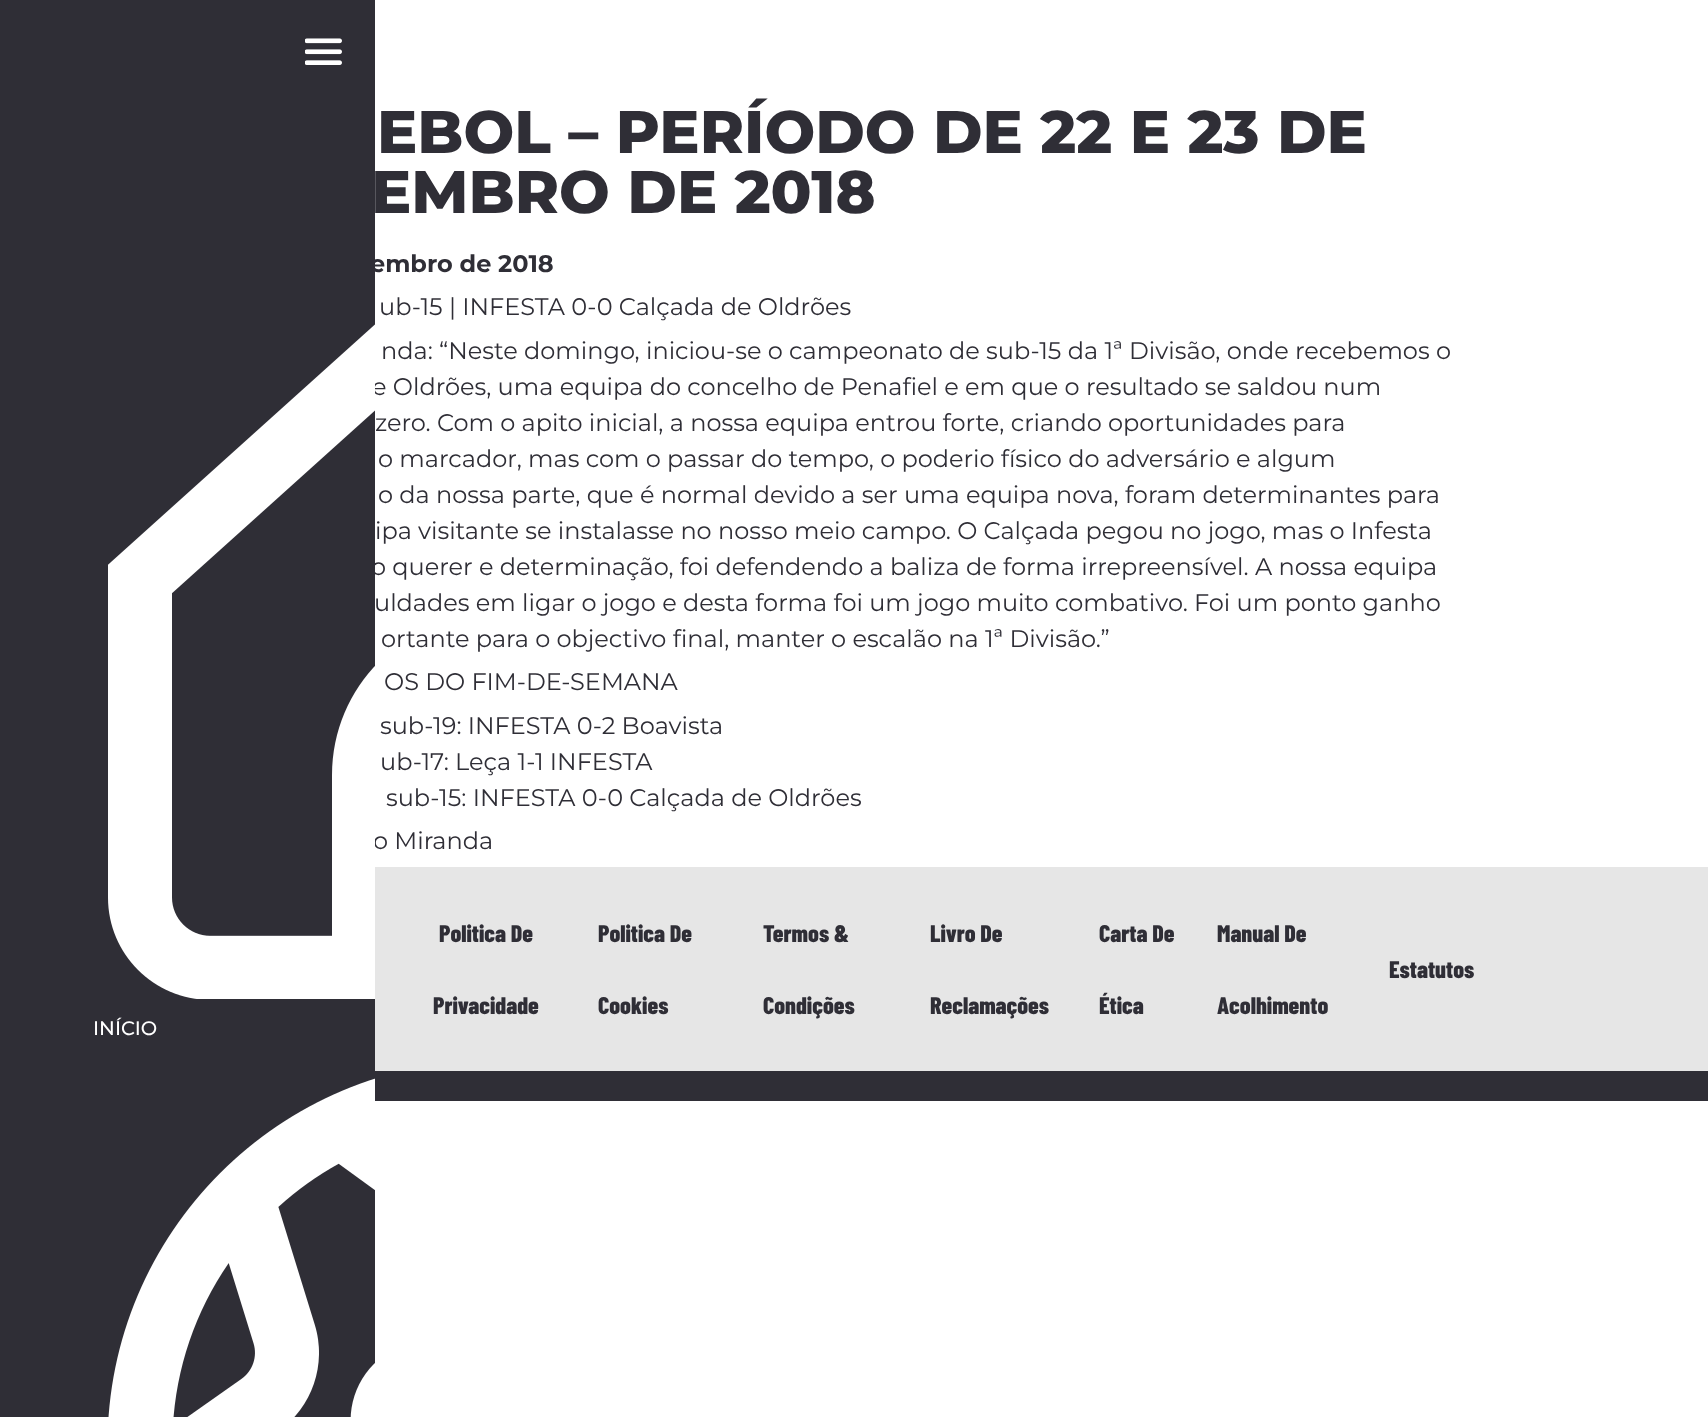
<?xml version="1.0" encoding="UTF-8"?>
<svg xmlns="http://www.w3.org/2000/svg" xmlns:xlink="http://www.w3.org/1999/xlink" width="1708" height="1417">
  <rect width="100%" height="100%" fill="#ffffff" />
  <rect x="375" y="867" width="1333" height="204" fill="#e6e6e6" />
  <rect x="375" y="1071" width="1333" height="30" fill="#2f2e36" />
  <rect width="375" height="1417" fill="#2f2e36" />
  <image x="305" y="38" width="37" height="27" xlink:href="image1.png" />
  <image x="108" y="1078" width="267" height="339" xlink:href="image3.png" />
  <text x="377" y="153" style="font-family: Montserrat; font-size: 60px; font-weight: 800; fill: #2f2e36">EBOL – PERÍODO DE 22 E 23 DE</text>
  <text x="371" y="213" style="font-family: Montserrat; font-size: 60px; font-weight: 800; fill: #2f2e36">EMBRO DE 2018</text>
  <text x="370" y="272" style="font-family: Montserrat; font-size: 24px; font-weight: bold; fill: #2f2e36">embro de 2018</text>
  <text x="379" y="315" style="font-family: Montserrat; font-size: 24px; fill: #2f2e36">ub-15 | INFESTA 0-0 Calçada de Oldrões</text>
  <text x="381" y="359" style="font-family: Montserrat; font-size: 24px; fill: #2f2e36">nda: “Neste domingo, iniciou-se o campeonato de sub-15 da 1ª Divisão, onde recebemos o</text>
  <text x="372" y="395" style="font-family: Montserrat; font-size: 24px; fill: #2f2e36">e Oldrões, uma equipa do concelho de Penafiel e em que o resultado se saldou num</text>
  <text x="375" y="431" style="font-family: Montserrat; font-size: 24px; fill: #2f2e36">zero. Com o apito inicial, a nossa equipa entrou forte, criando oportunidades para</text>
  <text x="378" y="467" style="font-family: Montserrat; font-size: 24px; fill: #2f2e36">o marcador, mas com o passar do tempo, o poderio físico do adversário e algum</text>
  <text x="378" y="503" style="font-family: Montserrat; font-size: 24px; fill: #2f2e36">o da nossa parte, que é normal devido a ser uma equipa nova, foram determinantes para</text>
  <text x="375" y="539" style="font-family: Montserrat; font-size: 24px; fill: #2f2e36">ipa visitante se instalasse no nosso meio campo. O Calçada pegou no jogo, mas o Infesta</text>
  <text x="371" y="575" style="font-family: Montserrat; font-size: 24px; fill: #2f2e36">o querer e determinação, foi defendendo a baliza de forma irrepreensível. A nossa equipa</text>
  <text x="374" y="611" style="font-family: Montserrat; font-size: 24px; fill: #2f2e36">uldades em ligar o jogo e desta forma foi um jogo muito combativo. Foi um ponto ganho</text>
  <text x="381" y="647" style="font-family: Montserrat; font-size: 24px; fill: #2f2e36">ortante para o objectivo final, manter o escalão na 1ª Divisão.”</text>
  <text x="384" y="690" style="font-family: Montserrat; font-size: 24px; fill: #2f2e36">OS DO FIM-DE-SEMANA</text>
  <text x="380" y="734" style="font-family: Montserrat; font-size: 24px; fill: #2f2e36">sub-19: INFESTA 0-2 Boavista</text>
  <text x="380" y="770" style="font-family: Montserrat; font-size: 24px; fill: #2f2e36">ub-17: Leça 1-1 INFESTA</text>
  <text x="386" y="806" style="font-family: Montserrat; font-size: 24px; fill: #2f2e36">sub-15: INFESTA 0-0 Calçada de Oldrões</text>
  <text x="373" y="849" style="font-family: Montserrat; font-size: 24px; fill: #2f2e36">o Miranda</text>
  <text x="439" y="942" style="font-family: Barlow Condensed; font-size: 24px; font-weight: 800; fill: #2f2e36">Politica De</text>
  <text x="433" y="1014" style="font-family: Barlow Condensed; font-size: 24px; font-weight: 800; fill: #2f2e36">Privacidade</text>
  <text x="598" y="942" style="font-family: Barlow Condensed; font-size: 24px; font-weight: 800; fill: #2f2e36">Politica De</text>
  <text x="598" y="1014" style="font-family: Barlow Condensed; font-size: 24px; font-weight: 800; fill: #2f2e36">Cookies</text>
  <text x="763" y="942" style="font-family: Barlow Condensed; font-size: 24px; font-weight: 800; fill: #2f2e36">Termos &amp;</text>
  <text x="763" y="1014" style="font-family: Barlow Condensed; font-size: 24px; font-weight: 800; fill: #2f2e36">Condições</text>
  <text x="930" y="942" style="font-family: Barlow Condensed; font-size: 24px; font-weight: 800; fill: #2f2e36">Livro De</text>
  <text x="930" y="1014" style="font-family: Barlow Condensed; font-size: 24px; font-weight: 800; fill: #2f2e36">Reclamações</text>
  <text x="1099" y="942" style="font-family: Barlow Condensed; font-size: 24px; font-weight: 800; fill: #2f2e36">Carta De</text>
  <text x="1099" y="1014" style="font-family: Barlow Condensed; font-size: 24px; font-weight: 800; fill: #2f2e36">Ética</text>
  <text x="1217" y="942" style="font-family: Barlow Condensed; font-size: 24px; font-weight: 800; fill: #2f2e36">Manual De</text>
  <text x="1217" y="1014" style="font-family: Barlow Condensed; font-size: 24px; font-weight: 800; fill: #2f2e36">Acolhimento</text>
  <text x="1389" y="978" style="font-family: Barlow Condensed; font-size: 24px; font-weight: 800; fill: #2f2e36">Estatutos</text>
  <image x="108" y="324" width="267" height="675" xlink:href="image2.png" />
  <text x="93" y="1035" style="font-family: Montserrat; font-size: 19.5px; font-weight: 500; fill: #ffffff">INÍCIO</text>
</svg>
